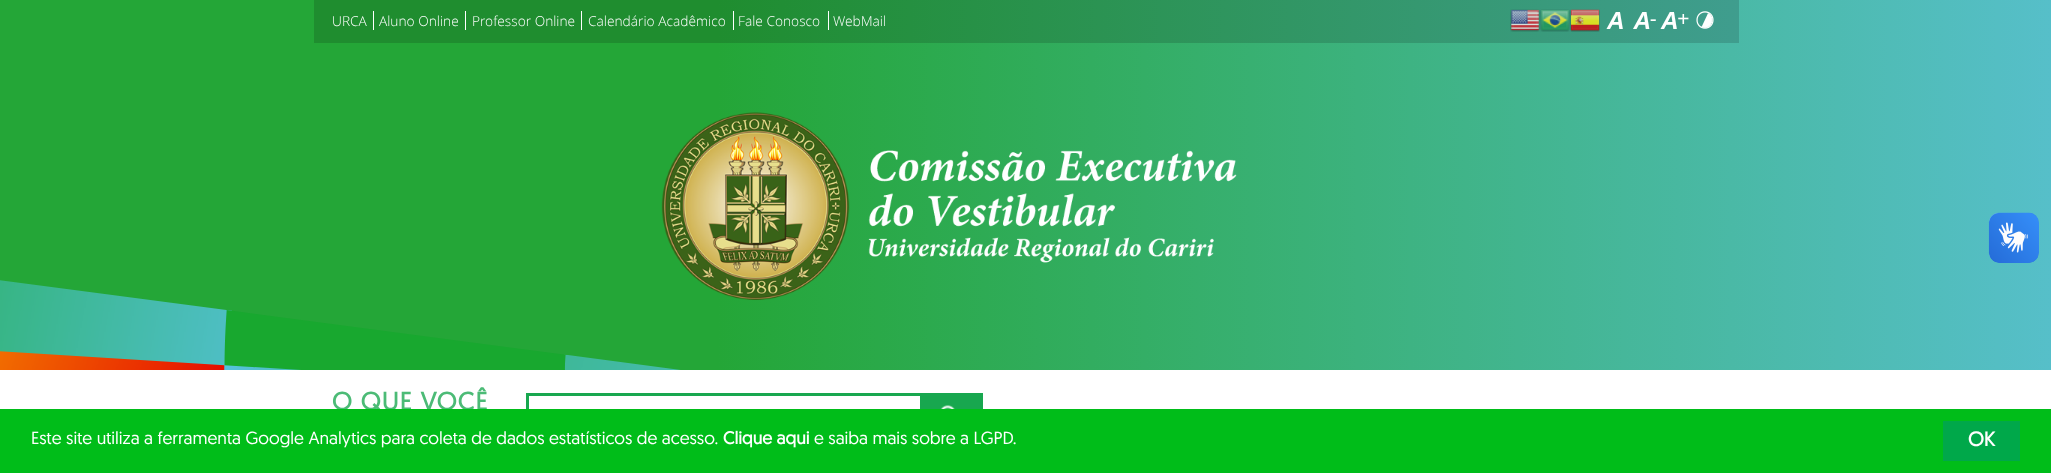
<?xml version="1.0" encoding="UTF-8"?>
<svg xmlns="http://www.w3.org/2000/svg" xmlns:xlink="http://www.w3.org/1999/xlink" width="2051" height="473">
  <defs>
    <linearGradient id="g1" gradientUnits="userSpaceOnUse" x1="2051" y1="281" x2="0" y2="281"><stop offset="0" stop-color="#56bfc9" /><stop offset="0.65" stop-color="#24a637" /></linearGradient>
    <linearGradient id="g2" gradientUnits="userSpaceOnUse" x1="2051" y1="281" x2="0" y2="281"><stop offset="0" stop-color="#49a2ab" /><stop offset="0.65" stop-color="#1f8d2f" /></linearGradient>
  </defs>
  <rect width="100%" height="100%" fill="#ffffff" />
  <rect width="2051" height="370" fill="url(#g1)" />
  <rect x="314" width="1425" height="43" fill="url(#g2)" />
  <image x="0" y="280" width="681" height="90" xlink:href="image1.png" />
  <rect x="373" y="11" width="1" height="19" fill="#ffffff" />
  <rect x="465" y="11" width="1" height="19" fill="#ffffff" />
  <rect x="581" y="11" width="1" height="19" fill="#ffffff" />
  <rect x="733" y="11" width="1" height="19" fill="#ffffff" />
  <rect x="828" y="11" width="1" height="19" fill="#ffffff" />
  <image x="1510" y="9" width="30" height="23" xlink:href="image2.png" />
  <image x="1540" y="9" width="30" height="23" xlink:href="image3.png" />
  <image x="1570" y="9" width="30" height="23" xlink:href="image4.png" />
  <image x="1606" y="12" width="17" height="17" xlink:href="image5.png" />
  <image x="1633" y="12" width="23" height="17" xlink:href="image6.png" />
  <image x="1660" y="12" width="29" height="17" xlink:href="image7.png" />
  <image x="1696" y="11" width="18" height="18" xlink:href="image8.png" />
  <image x="661" y="112" width="576" height="188" xlink:href="image9.png" />
  <rect x="526" y="393" width="394" height="3" fill="#18a74f" />
  <rect x="526" y="393" width="3" height="16" fill="#18a74f" />
  <rect x="920" y="393" width="63" height="16" fill="#18a74f" />
  <image x="940" y="405" width="15" height="4" xlink:href="image10.png" />
  <image x="1988" y="212" width="51" height="51" xlink:href="image11.png" />
  <image x="1989" y="213" width="50" height="50" xlink:href="image12.png" />
  <text x="332" y="26" style="font-family: Open Sans; font-size: 13.75px; font-weight: 300; fill: #ffffff">URCA</text>
  <text x="379" y="26" style="font-family: Open Sans; font-size: 13.75px; font-weight: 300; fill: #ffffff">Aluno Online</text>
  <text x="472" y="26" style="font-family: Open Sans; font-size: 13.75px; font-weight: 300; fill: #ffffff">Professor Online</text>
  <text x="588" y="26" style="font-family: Open Sans; font-size: 13.75px; font-weight: 300; fill: #ffffff">Calendário Acadêmico</text>
  <text x="738" y="26" style="font-family: Open Sans; font-size: 13.75px; font-weight: 300; fill: #ffffff">Fale Conosco</text>
  <text x="833" y="26" style="font-family: Open Sans; font-size: 13.75px; font-weight: 300; fill: #ffffff">WebMail</text>
  <text x="332" y="410" style="font-family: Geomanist; font-size: 25px; font-weight: bold; letter-spacing: 1.25px; fill: #4cbb76">O QUE VOCÊ</text>
  <rect y="409" width="2051" height="64" fill="#00bd19" />
  <text x="31" y="444" style="font-family: Geomanist; font-size: 17.5px; fill: #ffffff">Este site utiliza a ferramenta Google Analytics para coleta de dados estatísticos de acesso.</text>
  <text x="723" y="444" style="font-family: Geomanist; font-size: 17.5px; font-weight: bold; fill: #ffffff">Clique aqui</text>
  <text x="814" y="444" style="font-family: Geomanist; font-size: 17.5px; fill: #ffffff">e saiba mais sobre a LGPD.</text>
  <rect x="1943" y="421" width="77" height="40" fill="#00a84a" />
  <text x="1968" y="446" style="font-family: Geomanist; font-size: 20px; font-weight: bold; fill: #ffffff">OK</text>
</svg>
